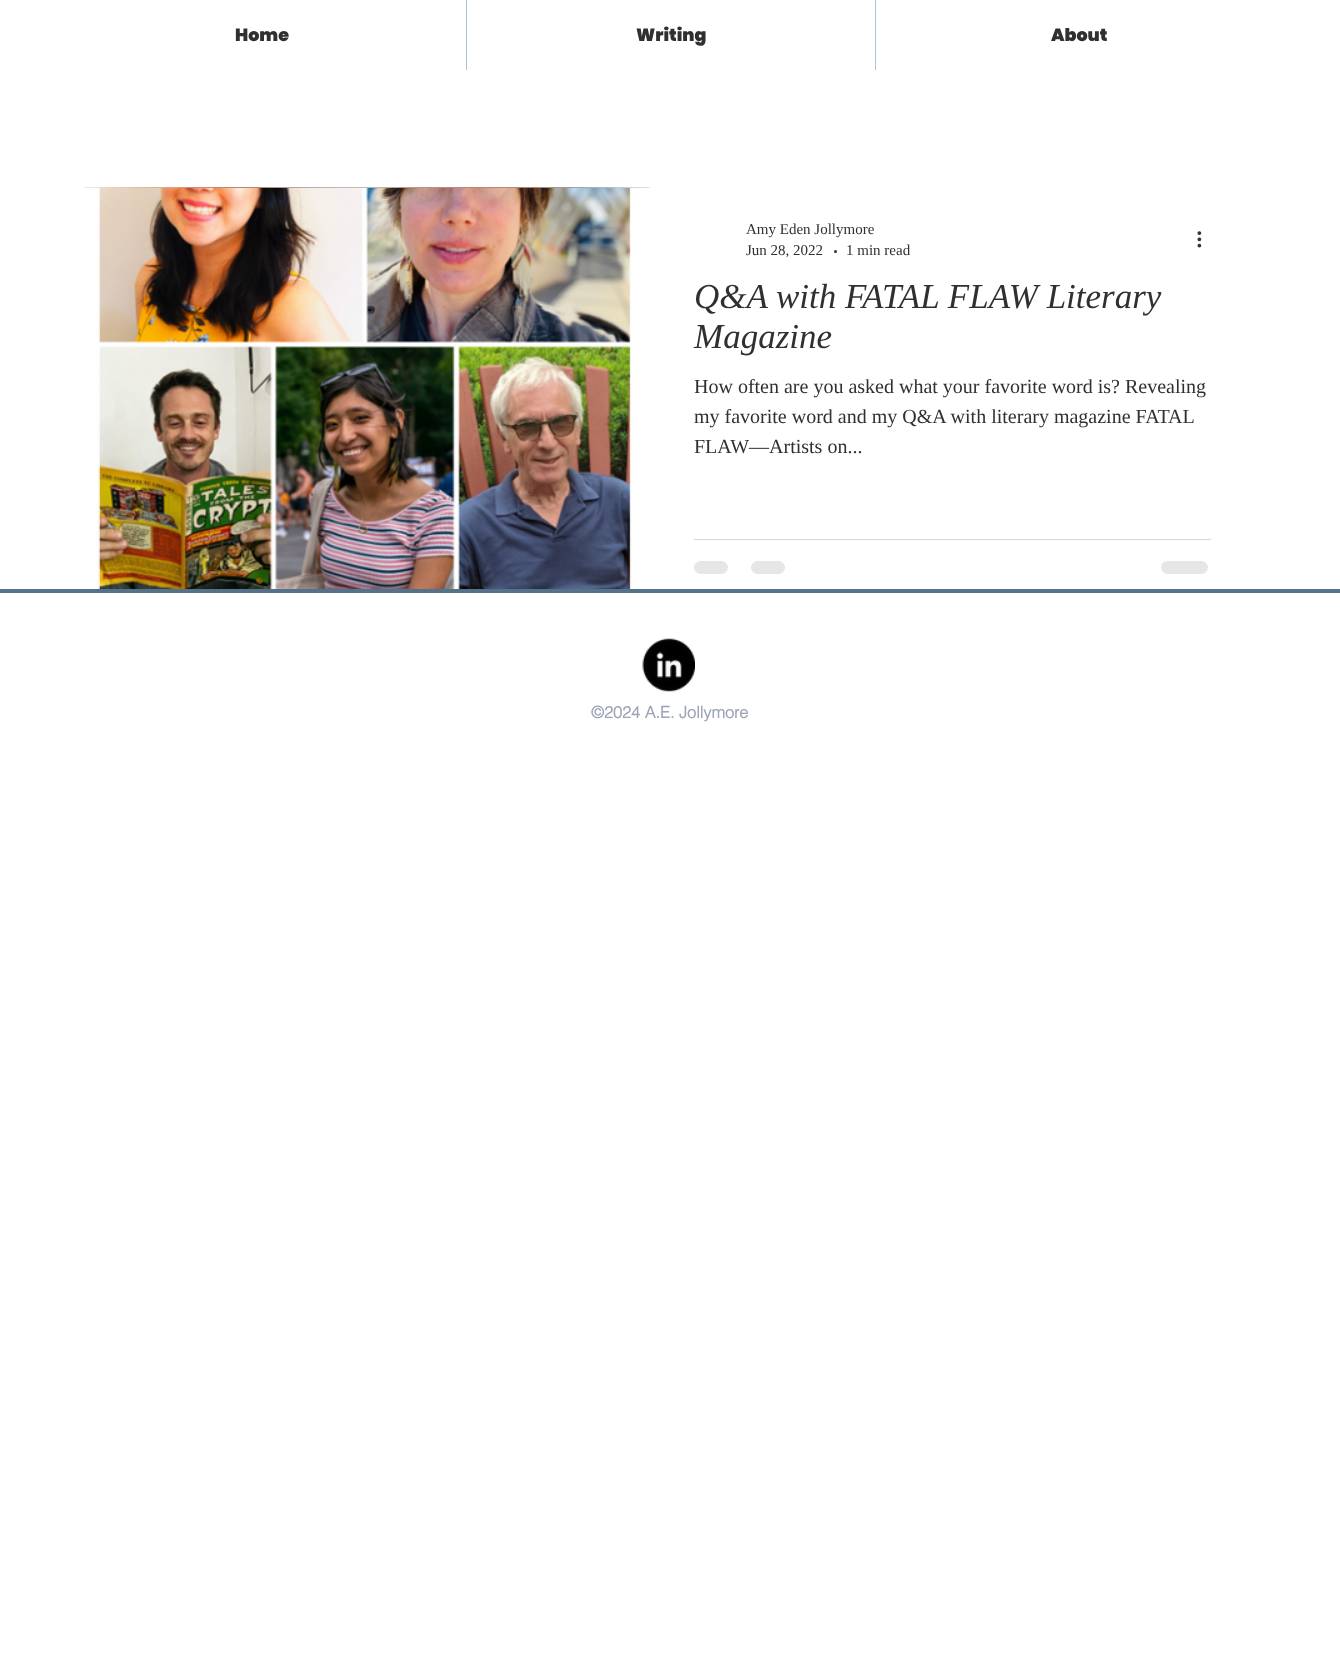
<?xml version="1.0" encoding="UTF-8"?>
<svg xmlns="http://www.w3.org/2000/svg" xmlns:xlink="http://www.w3.org/1999/xlink" width="1340" height="1672">
  <rect width="100%" height="100%" fill="#ffffff" />
  <rect x="466" width="1" height="70" fill="#adc5d8" />
  <rect x="875" width="1" height="70" fill="#adc5d8" />
  <image x="84" y="187" width="566" height="1" xlink:href="image1.png" />
  <image x="84" y="188" width="566" height="401" xlink:href="image2.png" />
  <circle cx="835.5" cy="251.5" r="1.5" fill="#313231" />
  <image x="1197" y="231" width="5" height="17" xlink:href="image3.png" />
  <rect x="694" y="539" width="517" height="1" fill="#d6d6d6" />
  <rect x="694" y="561" width="34" height="13" rx="6.5" fill="#e6e6e6" />
  <rect x="751" y="561" width="34" height="13" rx="6.5" fill="#e6e6e6" />
  <rect x="1161" y="561" width="47" height="13" rx="6.5" fill="#e6e6e6" />
  <rect y="589" width="1340" height="4" fill="#54728a" />
  <image x="642" y="638" width="53" height="54" xlink:href="image4.png" />
  <text x="235" y="41" style="font-family: Poppins; font-size: 17.5px; font-weight: 900; fill: #303030">Home</text>
  <text x="636" y="41" style="font-family: Poppins; font-size: 17.5px; font-weight: 900; fill: #303030">Writing</text>
  <text x="1051" y="41" style="font-family: Poppins; font-size: 17.5px; font-weight: 900; fill: #303030">About</text>
  <text x="746" y="234" style="font-family: Liberation Serif; font-size: 15px; fill: #303030">Amy Eden Jollymore</text>
  <text x="746" y="255" style="font-family: Liberation Serif; font-size: 15px; fill: #303030">Jun 28, 2022</text>
  <text x="846" y="255" style="font-family: Liberation Serif; font-size: 15px; fill: #303030">1 min read</text>
  <text x="694" y="308" style="font-family: Liberation Serif; font-size: 35px; font-style: italic; fill: #303030">Q&amp;A with FATAL FLAW Literary</text>
  <text x="694" y="348" style="font-family: Liberation Serif; font-size: 35px; font-style: italic; fill: #303030">Magazine</text>
  <text x="694" y="393" style="font-family: Liberation Serif; font-size: 20px; fill: #303030">How often are you asked what your favorite word is? Revealing</text>
  <text x="694" y="423" style="font-family: Liberation Serif; font-size: 20px; fill: #303030">my favorite word and my Q&amp;A with literary magazine FATAL</text>
  <text x="694" y="453" style="font-family: Liberation Serif; font-size: 20px; fill: #303030">FLAW—Artists on...</text>
  <text x="591" y="718" style="font-family: helvetica; font-size: 16.25px; font-weight: bold; fill: #9ca5b5">©2024 A.E. Jollymore</text>
</svg>
